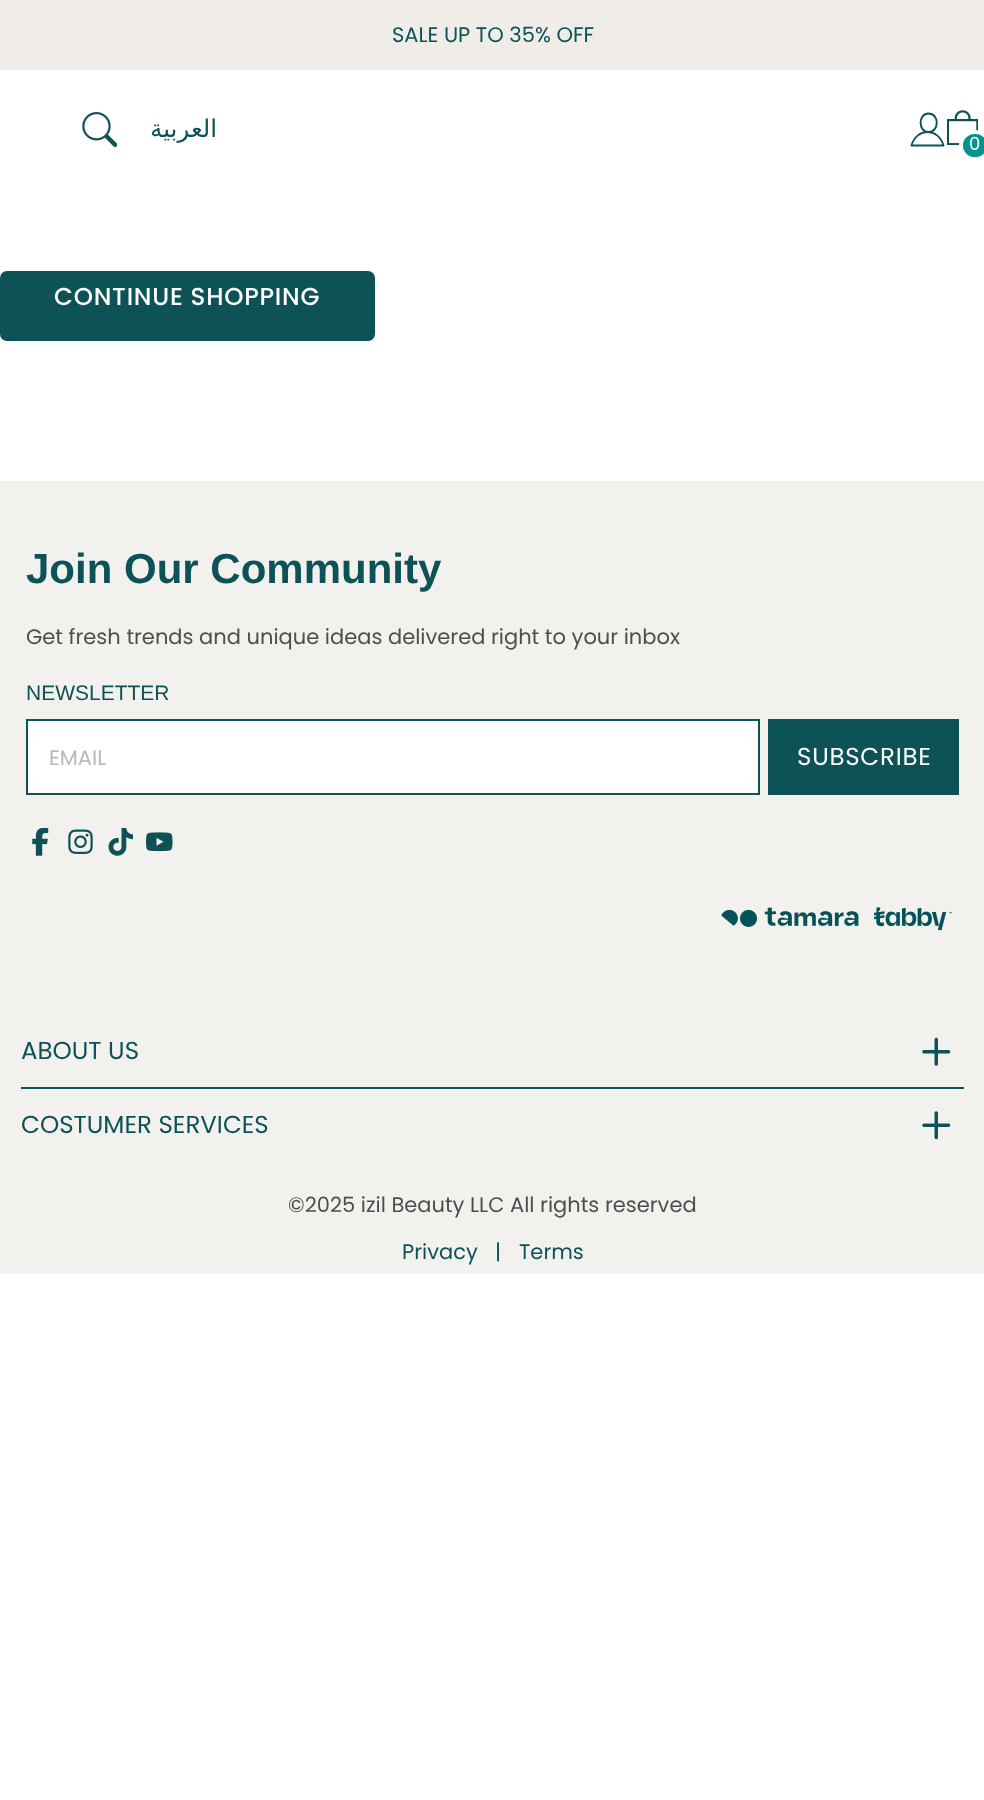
<?xml version="1.0" encoding="UTF-8"?>
<svg xmlns="http://www.w3.org/2000/svg" xmlns:xlink="http://www.w3.org/1999/xlink" width="984" height="1800">
  <rect width="100%" height="100%" fill="#ffffff" />
  <rect width="984" height="70" fill="#f0ede8" />
  <image x="82" y="112" width="35" height="35" xlink:href="image1.png" />
  <path d="M 943.5 145.5 c -5 -18 -27 -18 -32 0 z m -15 -13.5 c 11 0 11 -18.5 0 -18.5 c -10.5 0 -10.5 18.5 0 18.5 z" fill="none" stroke="#0d5257" stroke-width="1.9" stroke-linecap="round" stroke-linejoin="round" />
  <image x="947" y="110" width="31" height="35" xlink:href="image2.png" />
  <rect x="961" y="132" width="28" height="27" rx="13.5" fill="#019392" stroke="#ffffff" stroke-width="4" />
  <rect x="1" y="272" width="373" height="68" rx="6" fill="#0d5257" stroke="#0d5257" stroke-width="2" />
  <rect y="481" width="984" height="793" fill="#f3f1ed" />
  <rect x="27" y="720" width="732" height="74" fill="#ffffff" stroke="#0d5257" stroke-width="2" />
  <rect x="768" y="719" width="191" height="76" fill="#0d5257" />
  <image x="32" y="828" width="17" height="28" xlink:href="image3.png" />
  <image x="68" y="829" width="25" height="25" xlink:href="image4.png" />
  <image x="108" y="828" width="25" height="28" xlink:href="image5.png" />
  <image x="146" y="832" width="27" height="20" xlink:href="image6.png" />
  <image x="721" y="907" width="231" height="24" xlink:href="image7.png" />
  <rect x="21" y="1087" width="943" height="2" fill="#0d5257" />
  <image x="922" y="1037" width="29" height="29" xlink:href="image8.png" />
  <image x="922" y="1111" width="29" height="29" xlink:href="image9.png" />
  <text x="392" y="42" style="font-family: Poppins; font-size: 21px; fill: #0d5257">SALE UP TO 35% OFF</text>
  <text x="217" y="137" style="font-family: DejaVu Sans; font-size: 24.5px; direction: rtl; fill: #0d5257">العربية</text>
  <text x="969" y="150" style="font-family: Poppins; font-size: 18px; fill: #ffffff">0</text>
  <text x="54" y="305" style="font-family: Poppins; font-size: 24.5px; font-weight: 500; letter-spacing: 0.75px; fill: #ffffff">CONTINUE SHOPPING</text>
  <text x="26" y="583" style="font-family: Liberation Sans; font-size: 42px; font-weight: bold; fill: #0d5257">Join Our Community</text>
  <text x="26" y="644" style="font-family: Poppins; font-size: 21px; fill: #4e4e4e">Get fresh trends and unique ideas delivered right to your inbox</text>
  <text x="26" y="700" style="font-family: Liberation Sans; font-size: 21px; fill: #0d5257">NEWSLETTER</text>
  <text x="49" y="765" style="font-family: Poppins; font-size: 21px; fill: #b8b8b8">EMAIL</text>
  <text x="797" y="765" style="font-family: Poppins; font-size: 24.5px; letter-spacing: 0.75px; fill: #ffffff">SUBSCRIBE</text>
  <text x="21" y="1059" style="font-family: Poppins; font-size: 24.5px; fill: #0d5257">ABOUT US</text>
  <text x="21" y="1133" style="font-family: Poppins; font-size: 24.5px; fill: #0d5257">COSTUMER SERVICES</text>
  <text x="288" y="1212" style="font-family: Poppins; font-size: 21px; fill: #4e4e4e">©2025 izil Beauty LLC All rights reserved</text>
  <text x="402" y="1259" style="font-family: Poppins; font-size: 21px; fill: #0d5257">Privacy</text>
  <text x="495" y="1259" style="font-family: Poppins; font-size: 21px; fill: #0d5257">|</text>
  <text x="519" y="1259" style="font-family: Poppins; font-size: 21px; fill: #0d5257">Terms</text>
</svg>
